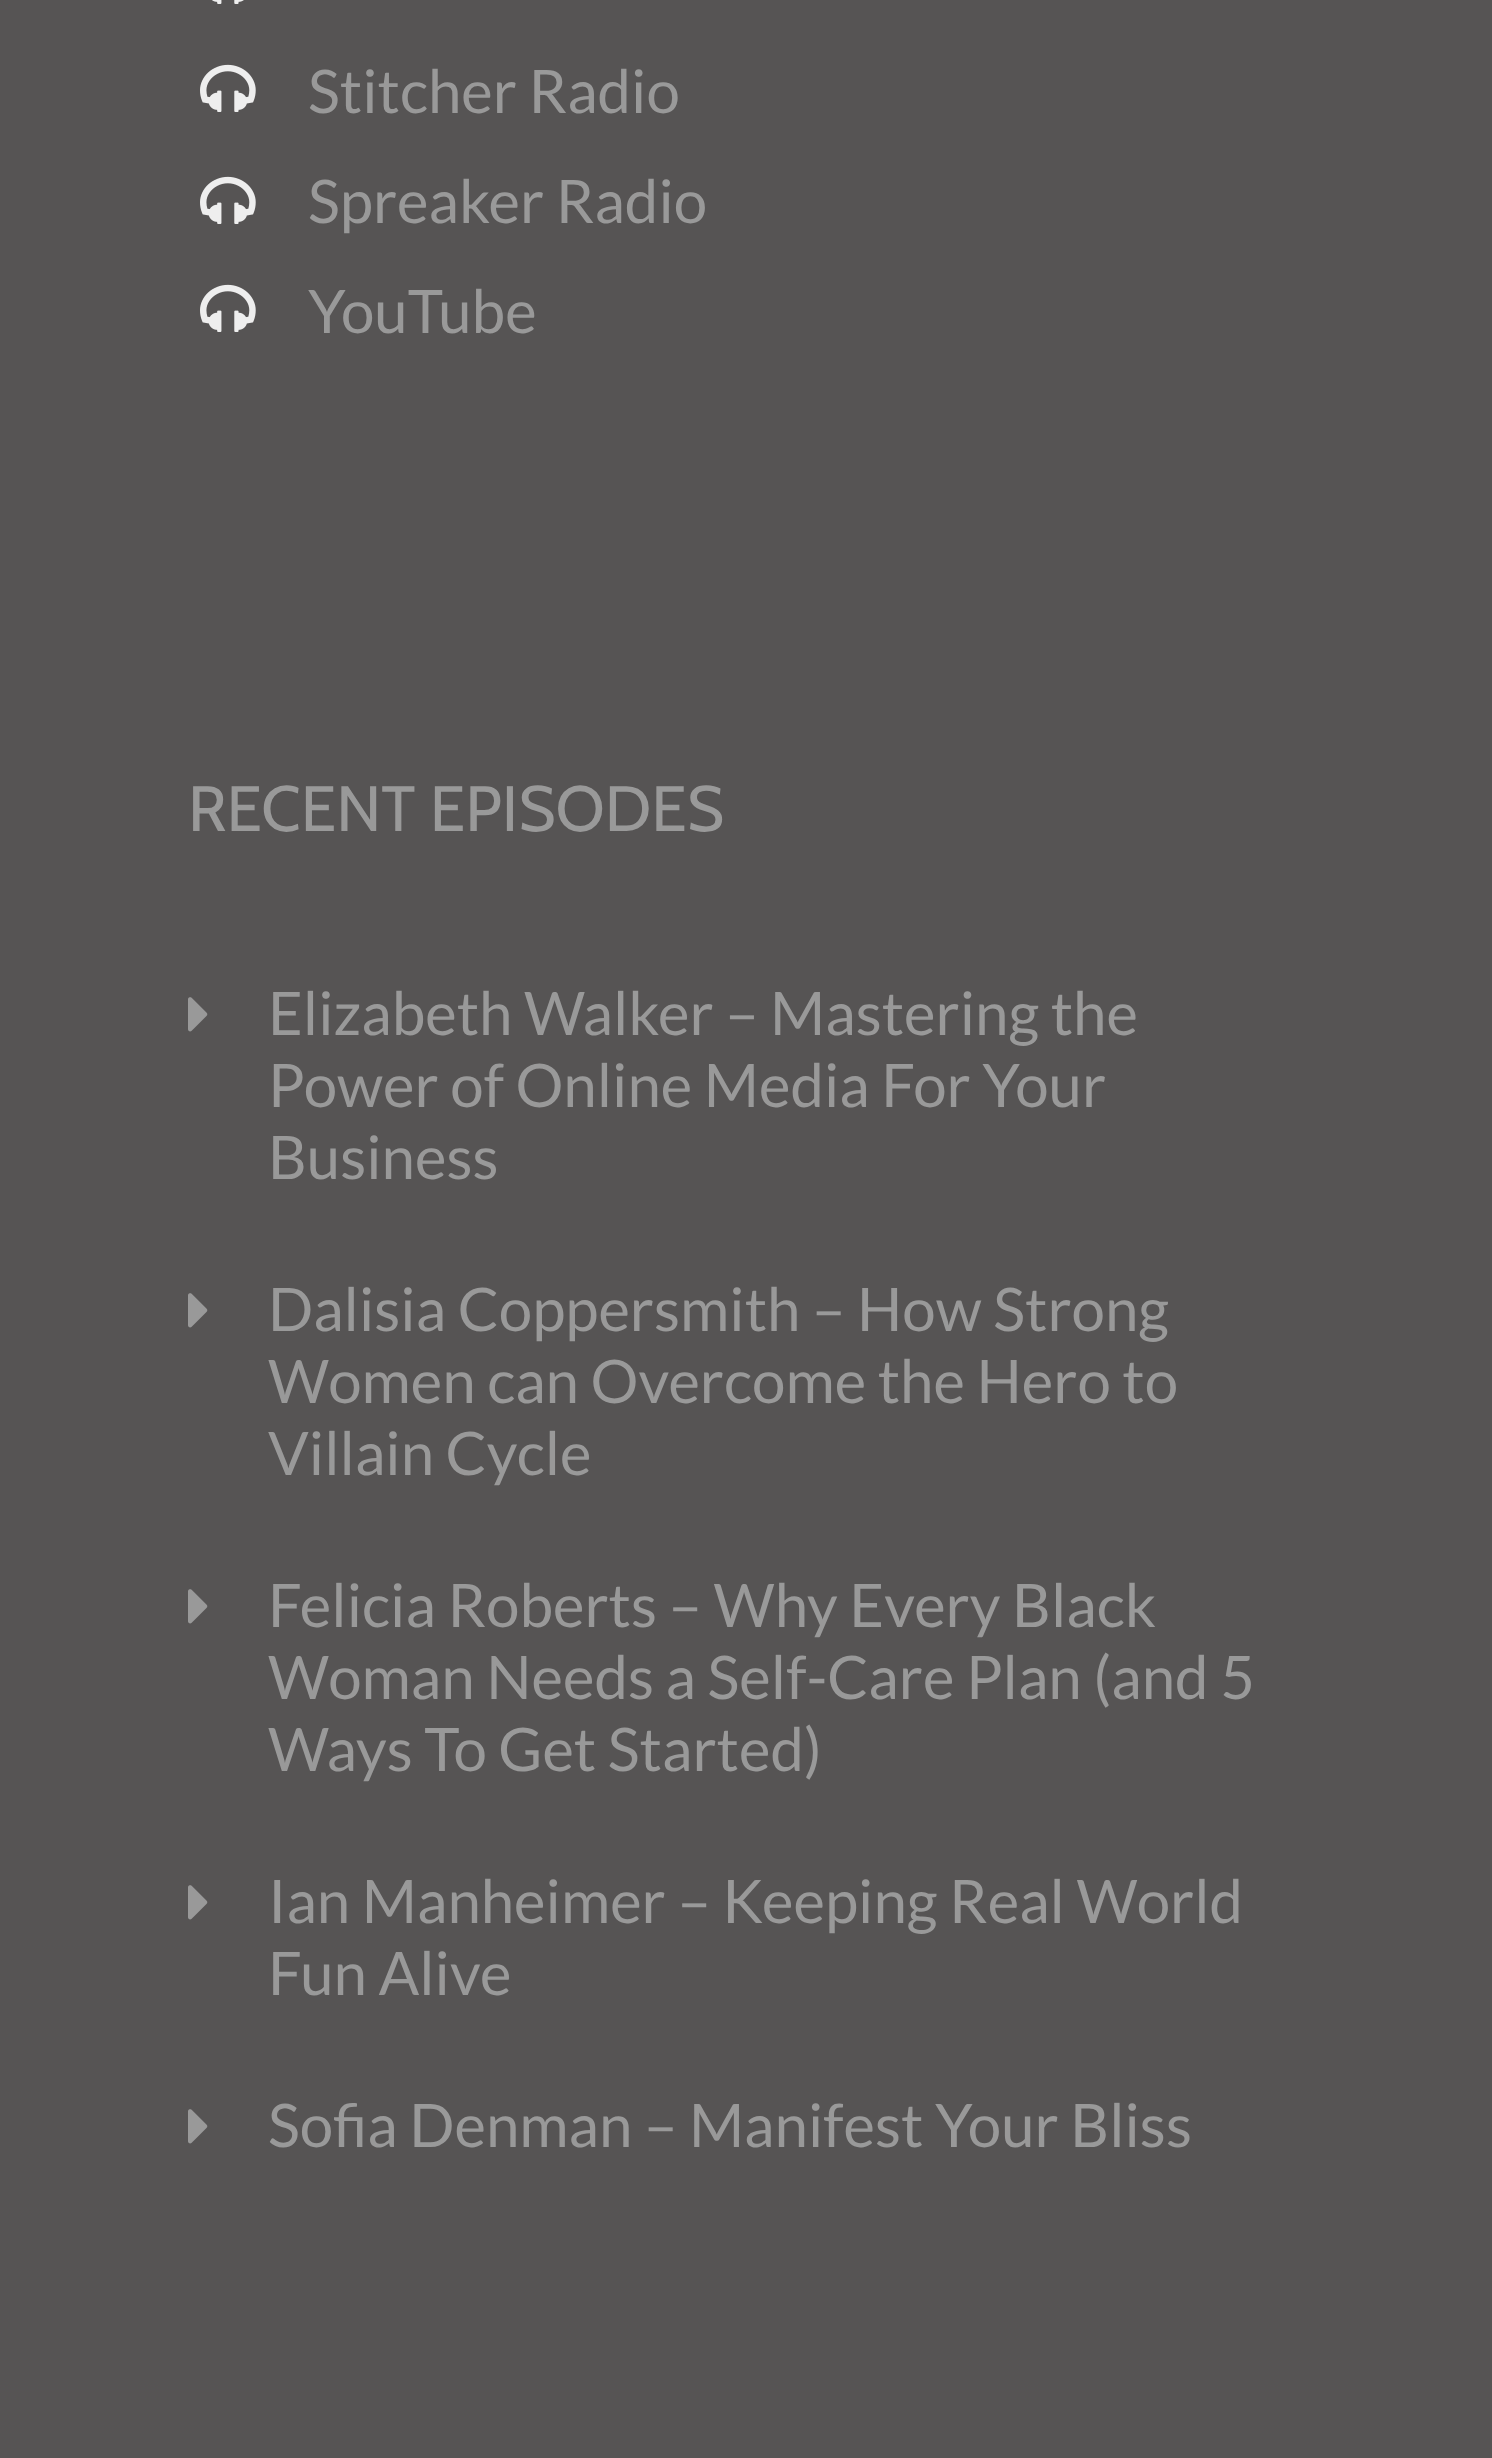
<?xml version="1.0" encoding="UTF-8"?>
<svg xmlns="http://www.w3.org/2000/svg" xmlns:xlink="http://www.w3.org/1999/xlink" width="1492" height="2458">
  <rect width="100%" height="100%" fill="#565454" />
  <image x="212" y="0" width="32" height="4" xlink:href="image1.png" />
  <image x="200" y="64" width="56" height="48" xlink:href="image2.png" />
  <image x="200" y="176" width="56" height="48" xlink:href="image2.png" />
  <image x="200" y="284" width="56" height="48" xlink:href="image2.png" />
  <image x="188" y="997" width="20" height="35" xlink:href="image3.png" />
  <image x="188" y="1293" width="20" height="35" xlink:href="image3.png" />
  <image x="188" y="1589" width="20" height="35" xlink:href="image3.png" />
  <image x="188" y="1885" width="20" height="35" xlink:href="image3.png" />
  <image x="188" y="2109" width="20" height="35" xlink:href="image3.png" />
  <text x="308" y="113" style="font-family: Lato; font-size: 60px; fill: #999999">Stitcher Radio</text>
  <text x="308" y="223" style="font-family: Lato; font-size: 60px; fill: #999999">Spreaker Radio</text>
  <text x="308" y="333" style="font-family: Lato; font-size: 60px; fill: #999999">YouTube</text>
  <text x="188" y="831" style="font-family: Cabin; font-size: 64px; fill: #999999">RECENT EPISODES</text>
  <text x="268" y="1035" style="font-family: Lato; font-size: 60px; fill: #999999">Elizabeth Walker – Mastering the</text>
  <text x="268" y="1107" style="font-family: Lato; font-size: 60px; fill: #999999">Power of Online Media For Your</text>
  <text x="268" y="1179" style="font-family: Lato; font-size: 60px; fill: #999999">Business</text>
  <text x="268" y="1331" style="font-family: Lato; font-size: 60px; fill: #999999">Dalisia Coppersmith – How Strong</text>
  <text x="268" y="1403" style="font-family: Lato; font-size: 60px; fill: #999999">Women can Overcome the Hero to</text>
  <text x="268" y="1475" style="font-family: Lato; font-size: 60px; fill: #999999">Villain Cycle</text>
  <text x="268" y="1627" style="font-family: Lato; font-size: 60px; fill: #999999">Felicia Roberts – Why Every Black</text>
  <text x="268" y="1699" style="font-family: Lato; font-size: 60px; fill: #999999">Woman Needs a Self-Care Plan (and 5</text>
  <text x="268" y="1771" style="font-family: Lato; font-size: 60px; fill: #999999">Ways To Get Started)</text>
  <text x="268" y="1923" style="font-family: Lato; font-size: 60px; fill: #999999">Ian Manheimer – Keeping Real World</text>
  <text x="268" y="1995" style="font-family: Lato; font-size: 60px; fill: #999999">Fun Alive</text>
  <text x="268" y="2147" style="font-family: Lato; font-size: 60px; fill: #999999">Sofia Denman – Manifest Your Bliss</text>
</svg>
